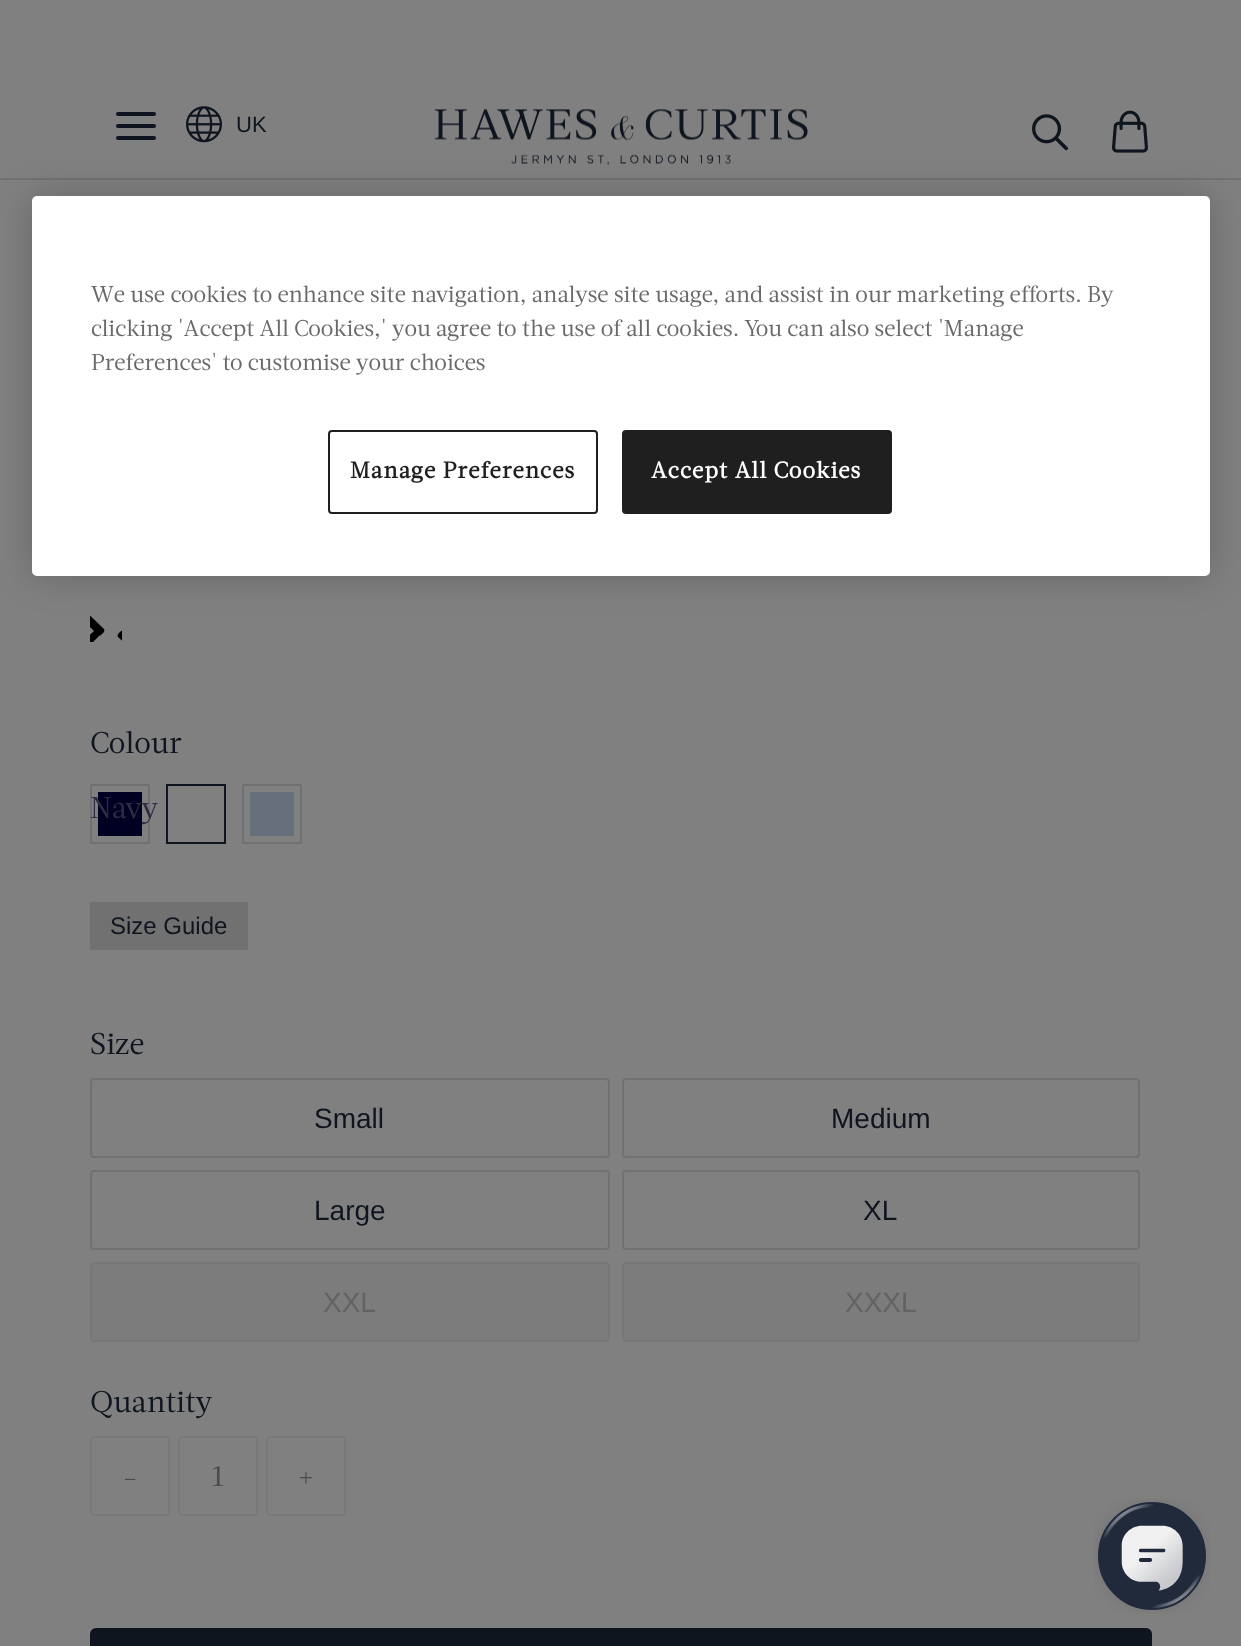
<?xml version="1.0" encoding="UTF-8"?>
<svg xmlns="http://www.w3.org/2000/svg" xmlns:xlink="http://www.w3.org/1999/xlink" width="1241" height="1646">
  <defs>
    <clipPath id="clip1"><rect x="90" y="610" width="32" height="32" /></clipPath>
  </defs>
  <rect width="100%" height="100%" fill="#808080" />
  <rect y="178" width="1241" height="2" fill="#717171" />
  <rect x="116" y="112" width="40" height="4" rx="2" fill="#0f151f" />
  <rect x="116" y="124" width="40" height="4" rx="2" fill="#0f151f" />
  <rect x="116" y="136" width="40" height="4" rx="2" fill="#0f151f" />
  <image x="186" y="106" width="36" height="37" xlink:href="image1.png" />
  <image x="434" y="108" width="374" height="57" xlink:href="image2.png" />
  <image x="1032" y="114" width="36" height="37" xlink:href="image3.png" />
  <image x="1112" y="110" width="36" height="43" xlink:href="image4.png" />
  <g clip-path="url(#clip1)">
    <path d="M 118 637 c -2 -3 4 -7 5 -7 l 18 -18 l 1 -3 c 1 -1 3 -3 5 -2 c 2 0 5 4 4 5 l -23 23 l 21 21 l -4 8 l -4 -5 z m -14 -8 c 2 3 -4 7 -5 7 l -18 18 c 0 1 -4 7 -7 5 c -1 -1 -5 -4 -3 -6 l 23 -22 l -19 -19 c -4 -5 -6 -5 -2 -8 c 4 -4 4 -2 8 3 z" fill="#000000" />
  </g>
  <rect x="98" y="792" width="44" height="44" fill="#000023" />
  <rect x="91" y="785" width="58" height="58" fill="none" stroke="#717171" stroke-width="2" />
  <rect x="167" y="785" width="58" height="58" fill="none" stroke="#0f151f" stroke-width="2" />
  <rect x="250" y="792" width="44" height="44" fill="#67707a" />
  <rect x="243" y="785" width="58" height="58" fill="none" stroke="#717171" stroke-width="2" />
  <rect x="90" y="902" width="158" height="48" fill="#717171" />
  <rect x="91" y="1079" width="518" height="78" rx="3" fill="none" stroke="#717171" stroke-width="2" />
  <rect x="623" y="1079" width="516" height="78" rx="3" fill="none" stroke="#717171" stroke-width="2" />
  <rect x="91" y="1171" width="518" height="78" rx="3" fill="none" stroke="#717171" stroke-width="2" />
  <rect x="623" y="1171" width="516" height="78" rx="3" fill="none" stroke="#717171" stroke-width="2" />
  <rect x="91" y="1263" width="518" height="78" rx="3" fill="#7c7c7c" stroke="#777777" stroke-width="2" />
  <rect x="623" y="1263" width="516" height="78" rx="3" fill="#7c7c7c" stroke="#777777" stroke-width="2" />
  <rect x="91" y="1437" width="78" height="78" rx="3" fill="none" stroke="#797979" stroke-width="2" />
  <rect x="179" y="1437" width="78" height="78" rx="3" fill="none" stroke="#797979" stroke-width="2" />
  <rect x="267" y="1437" width="78" height="78" rx="3" fill="none" stroke="#797979" stroke-width="2" />
  <rect x="91" y="1629" width="1060" height="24" rx="5" fill="#0f151f" stroke="#0f151f" stroke-width="2" />
  <rect x="32" y="196" width="1178" height="380" rx="5" fill="#000000" fill-opacity="0.2" filter="blur(18px)" />
  <rect x="32" y="196" width="1178" height="380" rx="5" fill="#ffffff" />
  <rect x="329" y="431" width="268" height="82" rx="3" fill="none" stroke="#1f1f1f" stroke-width="2" />
  <rect x="623" y="431" width="268" height="82" rx="3" fill="#1f1f1f" stroke="#1f1f1f" stroke-width="2" />
  <image x="1094" y="1498" width="116" height="116" xlink:href="image5.png" />
  <text x="236" y="132" style="font-family: Liberation Sans; font-size: 22px; fill: #0f151f">UK</text>
  <text x="90" y="753" style="font-family: 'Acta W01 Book'; font-size: 30px; fill: #0f151f">Colour</text>
  <text x="90" y="818" style="font-family: 'Acta W01 Book'; font-size: 30px; fill: #2c2c43">Navy</text>
  <text x="110" y="934" style="font-family: Liberation Sans; font-size: 24px; fill: #0f151f">Size Guide</text>
  <text x="90" y="1054" style="font-family: 'Acta W01 Book'; font-size: 30px; fill: #0f151f">Size</text>
  <text x="314" y="1128" style="font-family: Liberation Sans; font-size: 28px; fill: #0f151f">Small</text>
  <text x="831" y="1128" style="font-family: Liberation Sans; font-size: 28px; fill: #0f151f">Medium</text>
  <text x="314" y="1220" style="font-family: Liberation Sans; font-size: 28px; fill: #0f151f">Large</text>
  <text x="863" y="1220" style="font-family: Liberation Sans; font-size: 28px; fill: #0f151f">XL</text>
  <text x="323" y="1312" style="font-family: Liberation Sans; font-size: 28px; fill: #636363">XXL</text>
  <text x="845" y="1312" style="font-family: Liberation Sans; font-size: 28px; fill: #636363">XXXL</text>
  <text x="90" y="1412" style="font-family: 'Acta W01 Book'; font-size: 30px; fill: #0f151f">Quantity</text>
  <text x="123" y="1488" style="font-family: 'Acta W01 Book'; font-size: 32px; fill: #484b4f">-</text>
  <text x="212" y="1486" style="font-family: 'Acta W01 Book'; font-size: 30px; fill: #484b4f">1</text>
  <text x="297" y="1488" style="font-family: 'Acta W01 Book'; font-size: 32px; fill: #484b4f">+</text>
  <text x="91" y="302" style="font-family: 'Acta W01 Book'; font-size: 22.75px; fill: #696969">We use cookies to enhance site navigation, analyse site usage, and assist in our marketing efforts. By</text>
  <text x="91" y="336" style="font-family: 'Acta W01 Book'; font-size: 22.75px; fill: #696969">clicking 'Accept All Cookies,' you agree to the use of all cookies. You can also select 'Manage</text>
  <text x="91" y="370" style="font-family: 'Acta W01 Book'; font-size: 22.75px; fill: #696969">Preferences' to customise your choices</text>
  <text x="350" y="478" style="font-family: 'Acta W01 Book'; font-size: 22.75px; font-weight: bold; letter-spacing: 1.1px; fill: #1f1f1f">Manage Preferences</text>
  <text x="651" y="478" style="font-family: 'Acta W01 Book'; font-size: 22.75px; font-weight: bold; letter-spacing: 1.1px; fill: #ffffff">Accept All Cookies</text>
</svg>
